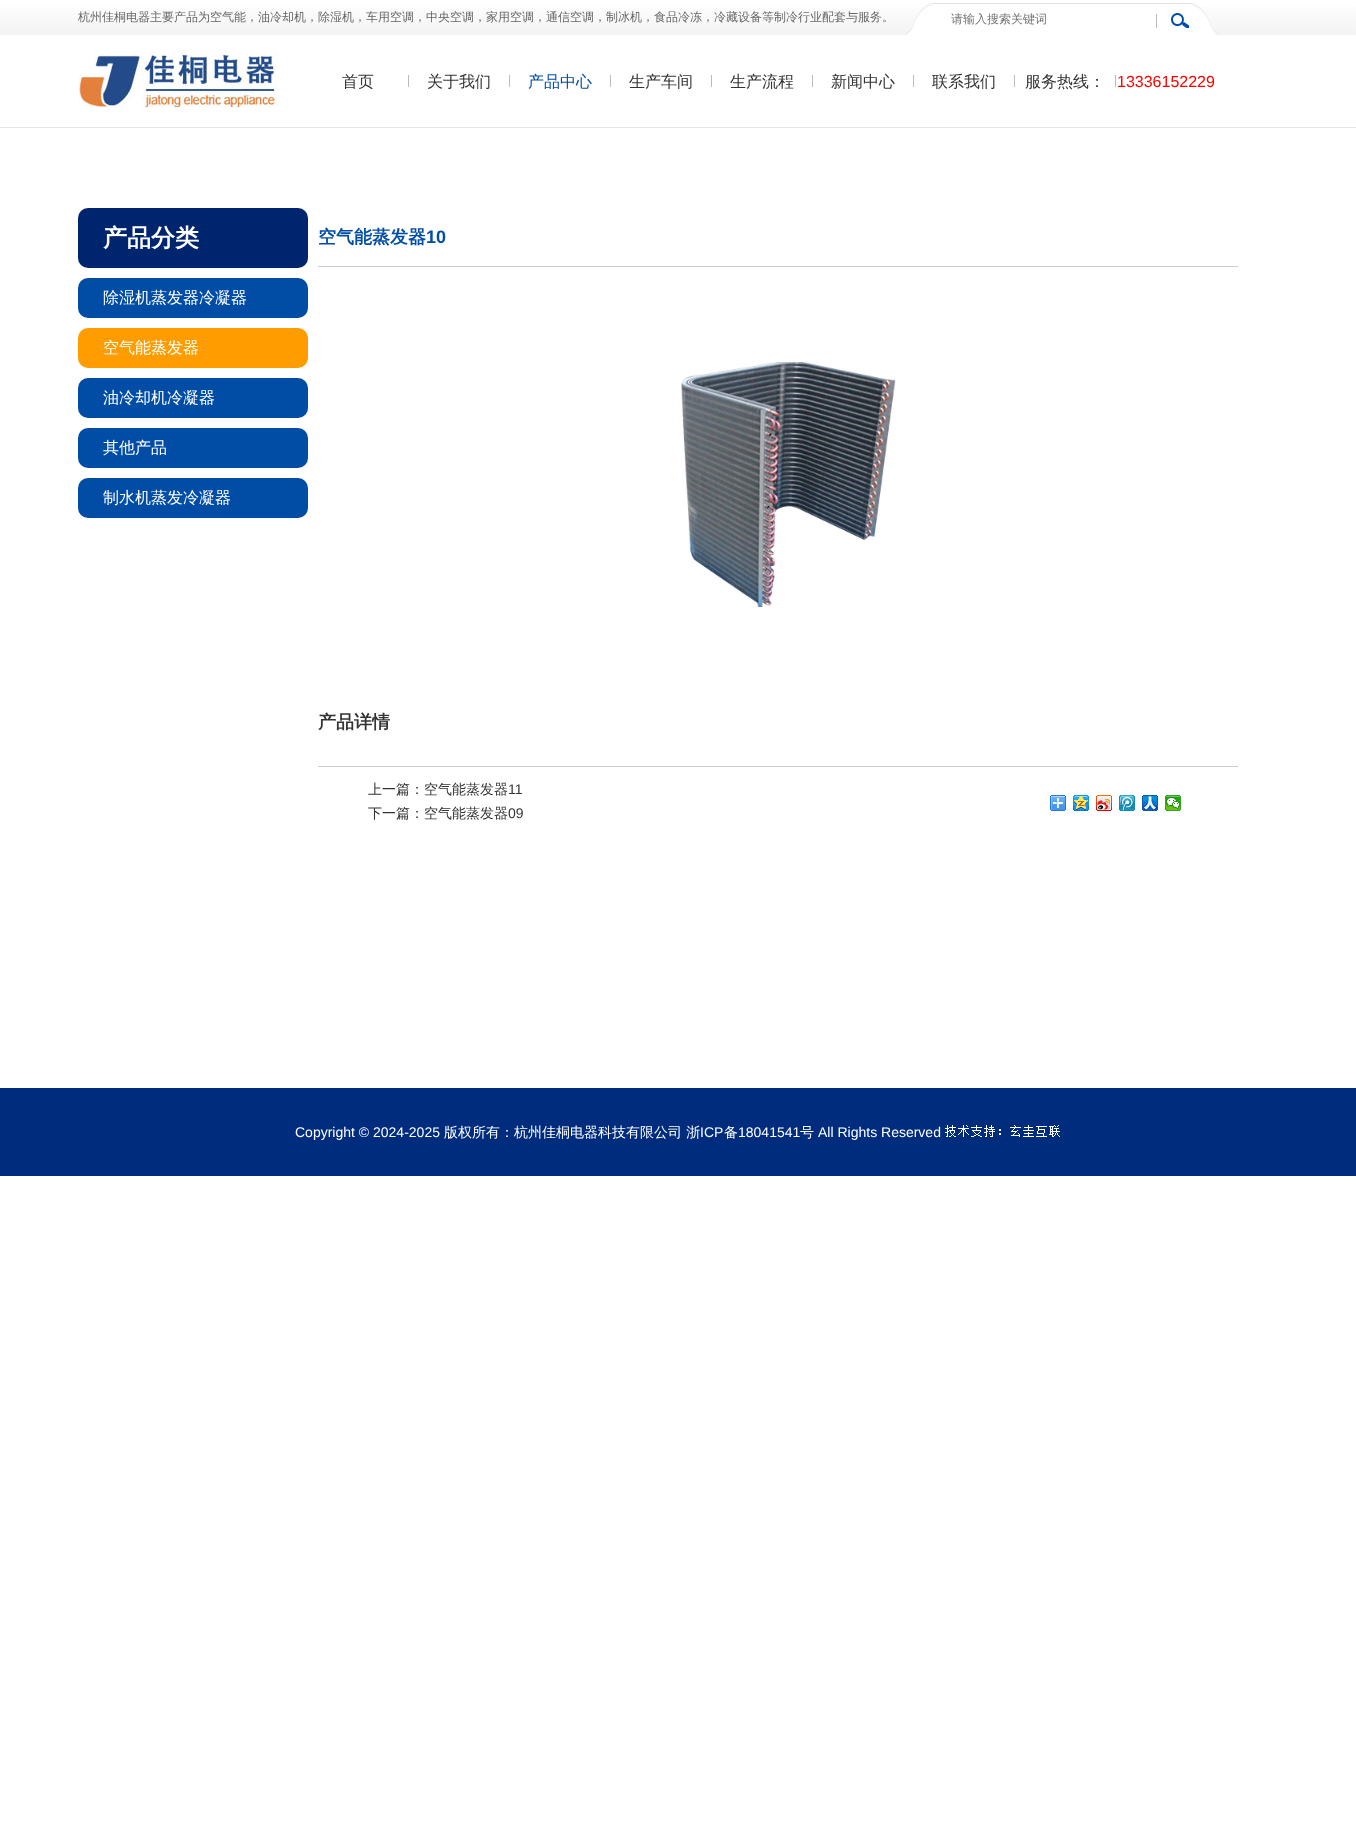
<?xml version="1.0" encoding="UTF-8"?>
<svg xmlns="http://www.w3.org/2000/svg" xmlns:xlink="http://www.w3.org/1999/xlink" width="1356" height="1828">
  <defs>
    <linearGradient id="g1" gradientUnits="userSpaceOnUse" x1="678" y1="0" x2="678" y2="35"><stop offset="0" stop-color="#ffffff" /><stop offset="1" stop-color="#f3f3f3" /></linearGradient>
  </defs>
  <rect width="100%" height="100%" fill="#ffffff" />
  <rect y="7" width="1356" height="28" fill="url(#g1)" />
  <image x="905" y="3" width="314" height="32" xlink:href="image1.png" />
  <image x="1156" y="13" width="33" height="15" xlink:href="image2.png" />
  <rect y="127" width="1356" height="1" fill="#e6e6e6" />
  <image x="78" y="51" width="200" height="56" xlink:href="image3.png" />
  <rect x="408" y="75" width="1" height="12" fill="#bbbbbb" />
  <rect x="509" y="75" width="1" height="12" fill="#bbbbbb" />
  <rect x="610" y="75" width="1" height="12" fill="#bbbbbb" />
  <rect x="711" y="75" width="1" height="12" fill="#bbbbbb" />
  <rect x="812" y="75" width="1" height="12" fill="#bbbbbb" />
  <rect x="913" y="75" width="1" height="12" fill="#bbbbbb" />
  <rect x="1014" y="75" width="1" height="12" fill="#bbbbbb" />
  <rect x="1115" y="75" width="1" height="12" fill="#bbbbbb" />
  <rect x="78" y="208" width="230" height="60" rx="10" fill="#00256f" />
  <rect x="78" y="278" width="230" height="40" rx="10" fill="#014da5" />
  <rect x="78" y="328" width="230" height="40" rx="10" fill="#ff9c00" />
  <rect x="78" y="378" width="230" height="40" rx="10" fill="#014da5" />
  <rect x="78" y="428" width="230" height="40" rx="10" fill="#014da5" />
  <rect x="78" y="478" width="230" height="40" rx="10" fill="#014da5" />
  <rect x="318" y="266" width="920" height="1" fill="#cccccc" />
  <image x="681" y="362" width="215" height="245" xlink:href="image4.png" />
  <rect x="318" y="766" width="920" height="1" fill="#cccccc" />
  <image x="1050" y="795" width="16" height="16" xlink:href="image5.png" />
  <image x="1073" y="795" width="16" height="16" xlink:href="image6.png" />
  <image x="1096" y="795" width="16" height="16" xlink:href="image7.png" />
  <image x="1119" y="795" width="16" height="16" xlink:href="image8.png" />
  <image x="1142" y="795" width="16" height="16" xlink:href="image9.png" />
  <image x="1165" y="795" width="16" height="16" xlink:href="image10.png" />
  <rect y="1088" width="1356" height="88" fill="#002c7e" />
  <image x="945" y="1125" width="115" height="12" xlink:href="image11.png" />
  <text x="78" y="21" style="font-family: WenQuanYi Zen Hei; font-size: 12px; font-weight: 500; fill: #666666">杭州佳桐电器主要产品为空气能，油冷却机，除湿机，车用空调，中央空调，家用空调，通信空调，制冰机，食品冷冻，冷藏设备等制冷行业配套与服务。</text>
  <text x="951" y="23" style="font-family: WenQuanYi Zen Hei; font-size: 12px; font-weight: 500; fill: #757575">请输入搜索关键词</text>
  <text x="342" y="87" style="font-family: WenQuanYi Zen Hei; font-size: 16px; font-weight: 500; fill: #333333">首页</text>
  <text x="427" y="87" style="font-family: WenQuanYi Zen Hei; font-size: 16px; font-weight: 500; fill: #333333">关于我们</text>
  <text x="528" y="87" style="font-family: WenQuanYi Zen Hei; font-size: 16px; font-weight: 500; fill: #014da5">产品中心</text>
  <text x="629" y="87" style="font-family: WenQuanYi Zen Hei; font-size: 16px; font-weight: 500; fill: #333333">生产车间</text>
  <text x="730" y="87" style="font-family: WenQuanYi Zen Hei; font-size: 16px; font-weight: 500; fill: #333333">生产流程</text>
  <text x="831" y="87" style="font-family: WenQuanYi Zen Hei; font-size: 16px; font-weight: 500; fill: #333333">新闻中心</text>
  <text x="932" y="87" style="font-family: WenQuanYi Zen Hei; font-size: 16px; font-weight: 500; fill: #333333">联系我们</text>
  <text x="1025" y="87" style="font-family: WenQuanYi Zen Hei; font-size: 16px; font-weight: 500; fill: #333333">服务热线：</text>
  <text x="1117" y="87" style="font-family: Liberation Sans; font-size: 16px; fill: #ff0000">13336152229</text>
  <text x="103" y="246" style="font-family: WenQuanYi Zen Hei; font-size: 24px; font-weight: bold; fill: #ffffff">产品分类</text>
  <text x="103" y="303" style="font-family: WenQuanYi Zen Hei; font-size: 16px; font-weight: 500; fill: #ffffff">除湿机蒸发器冷凝器</text>
  <text x="103" y="353" style="font-family: WenQuanYi Zen Hei; font-size: 16px; font-weight: 500; fill: #ffffff">空气能蒸发器</text>
  <text x="103" y="403" style="font-family: WenQuanYi Zen Hei; font-size: 16px; font-weight: 500; fill: #ffffff">油冷却机冷凝器</text>
  <text x="103" y="453" style="font-family: WenQuanYi Zen Hei; font-size: 16px; font-weight: 500; fill: #ffffff">其他产品</text>
  <text x="103" y="503" style="font-family: WenQuanYi Zen Hei; font-size: 16px; font-weight: 500; fill: #ffffff">制水机蒸发冷凝器</text>
  <text x="318" y="243" style="font-family: WenQuanYi Zen Hei; font-size: 18px; font-weight: bold; fill: #014da5">空气能蒸发器</text>
  <text x="426" y="243" style="font-family: Liberation Sans; font-size: 18px; font-weight: bold; fill: #014da5">10</text>
  <text x="318" y="728" style="font-family: WenQuanYi Zen Hei; font-size: 18px; font-weight: bold; fill: #333333">产品详情</text>
  <text x="368" y="794" style="font-family: WenQuanYi Zen Hei; font-size: 14px; font-weight: 500; fill: #333333">上一篇：空气能蒸发器</text>
  <text x="508" y="794" style="font-family: Liberation Sans; font-size: 14px; fill: #333333">11</text>
  <text x="368" y="818" style="font-family: WenQuanYi Zen Hei; font-size: 14px; font-weight: 500; fill: #333333">下一篇：空气能蒸发器</text>
  <text x="508" y="818" style="font-family: Liberation Sans; font-size: 14px; fill: #333333">09</text>
  <text x="295" y="1137" style="font-family: Liberation Sans; font-size: 14px; fill: #ffffff">Copyright © 2024-2025</text>
  <text x="444" y="1137" style="font-family: WenQuanYi Zen Hei; font-size: 14px; font-weight: 500; fill: #ffffff">版权所有：杭州佳桐电器科技有限公司 浙</text>
  <text x="700" y="1137" style="font-family: Liberation Sans; font-size: 14px; fill: #ffffff">ICP</text>
  <text x="724" y="1137" style="font-family: WenQuanYi Zen Hei; font-size: 14px; font-weight: 500; fill: #ffffff">备</text>
  <text x="738" y="1137" style="font-family: Liberation Sans; font-size: 14px; fill: #ffffff">18041541</text>
  <text x="800" y="1137" style="font-family: WenQuanYi Zen Hei; font-size: 14px; font-weight: 500; fill: #ffffff">号</text>
  <text x="818" y="1137" style="font-family: Liberation Sans; font-size: 14px; fill: #ffffff">All Rights Reserved</text>
</svg>
